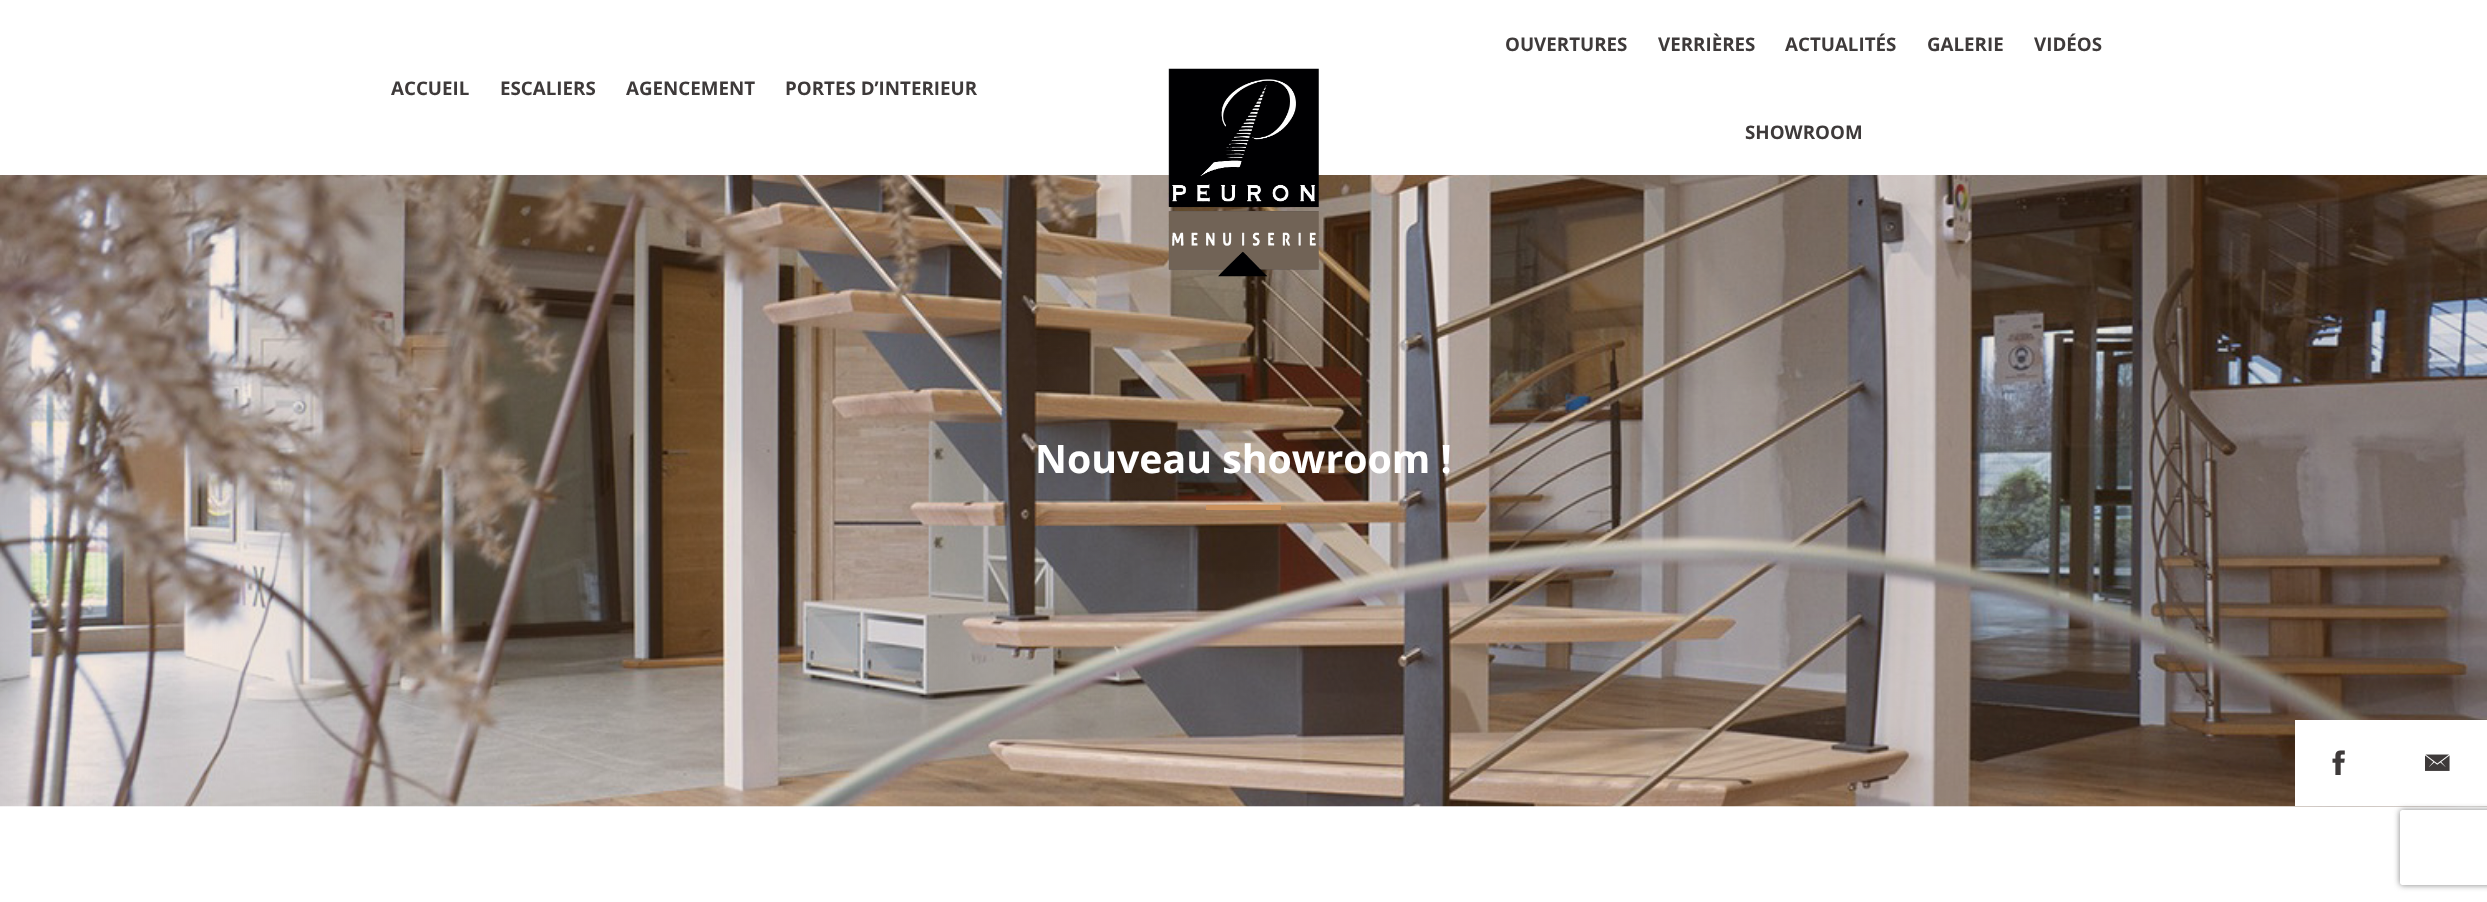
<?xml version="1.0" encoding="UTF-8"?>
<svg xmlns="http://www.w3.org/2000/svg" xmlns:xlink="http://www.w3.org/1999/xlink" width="2487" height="902">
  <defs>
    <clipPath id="clip1"><path d="M 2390 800 h 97 v 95 h -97 z m 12.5 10 h 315 c 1.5 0 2.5 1 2.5 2.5 v 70 c 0 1.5 -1 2.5 -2.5 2.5 h -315 c -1.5 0 -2.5 -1 -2.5 -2.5 v -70 c 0 -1.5 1 -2.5 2.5 -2.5 z" clip-rule="evenodd" /></clipPath>
  </defs>
  <rect width="100%" height="100%" fill="#ffffff" />
  <image x="0" y="175" width="2487" height="632" xlink:href="image2.png" />
  <image x="1168" y="68" width="151" height="209" xlink:href="image1.png" />
  <rect x="1206" y="505" width="75" height="5" fill="#cc925d" />
  <rect x="2295" y="720" width="192" height="86" fill="#ffffff" />
  <image x="2332" y="750" width="13" height="25" xlink:href="image3.png" />
  <image x="2425" y="754" width="25" height="17" xlink:href="image4.png" />
  <g clip-path="url(#clip1)">
    <rect x="2400" y="810" width="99" height="75" rx="2.5" fill="#808080" filter="blur(3px)" />
  </g>
  <text x="391" y="95" style="font-family: Open Sans; font-size: 18.75px; font-weight: bold; fill: #3e3a3a">ACCUEIL</text>
  <text x="500" y="95" style="font-family: Open Sans; font-size: 18.75px; font-weight: bold; fill: #3e3a3a">ESCALIERS</text>
  <text x="626" y="95" style="font-family: Open Sans; font-size: 18.75px; font-weight: bold; fill: #3e3a3a">AGENCEMENT</text>
  <text x="785" y="95" style="font-family: Open Sans; font-size: 18.75px; font-weight: bold; fill: #3e3a3a">PORTES D’INTERIEUR</text>
  <text x="1505" y="51" style="font-family: Open Sans; font-size: 18.75px; font-weight: bold; fill: #3e3a3a">OUVERTURES</text>
  <text x="1658" y="51" style="font-family: Open Sans; font-size: 18.75px; font-weight: bold; fill: #3e3a3a">VERRIÈRES</text>
  <text x="1785" y="51" style="font-family: Open Sans; font-size: 18.75px; font-weight: bold; fill: #3e3a3a">ACTUALITÉS</text>
  <text x="1927" y="51" style="font-family: Open Sans; font-size: 18.75px; font-weight: bold; fill: #3e3a3a">GALERIE</text>
  <text x="2034" y="51" style="font-family: Open Sans; font-size: 18.75px; font-weight: bold; fill: #3e3a3a">VIDÉOS</text>
  <text x="1745" y="139" style="font-family: Open Sans; font-size: 18.75px; font-weight: bold; fill: #3e3a3a">SHOWROOM</text>
  <text x="1035" y="473" style="font-family: Open Sans; font-size: 39.25px; font-weight: bold; fill: #ffffff">Nouveau showroom !</text>
</svg>
